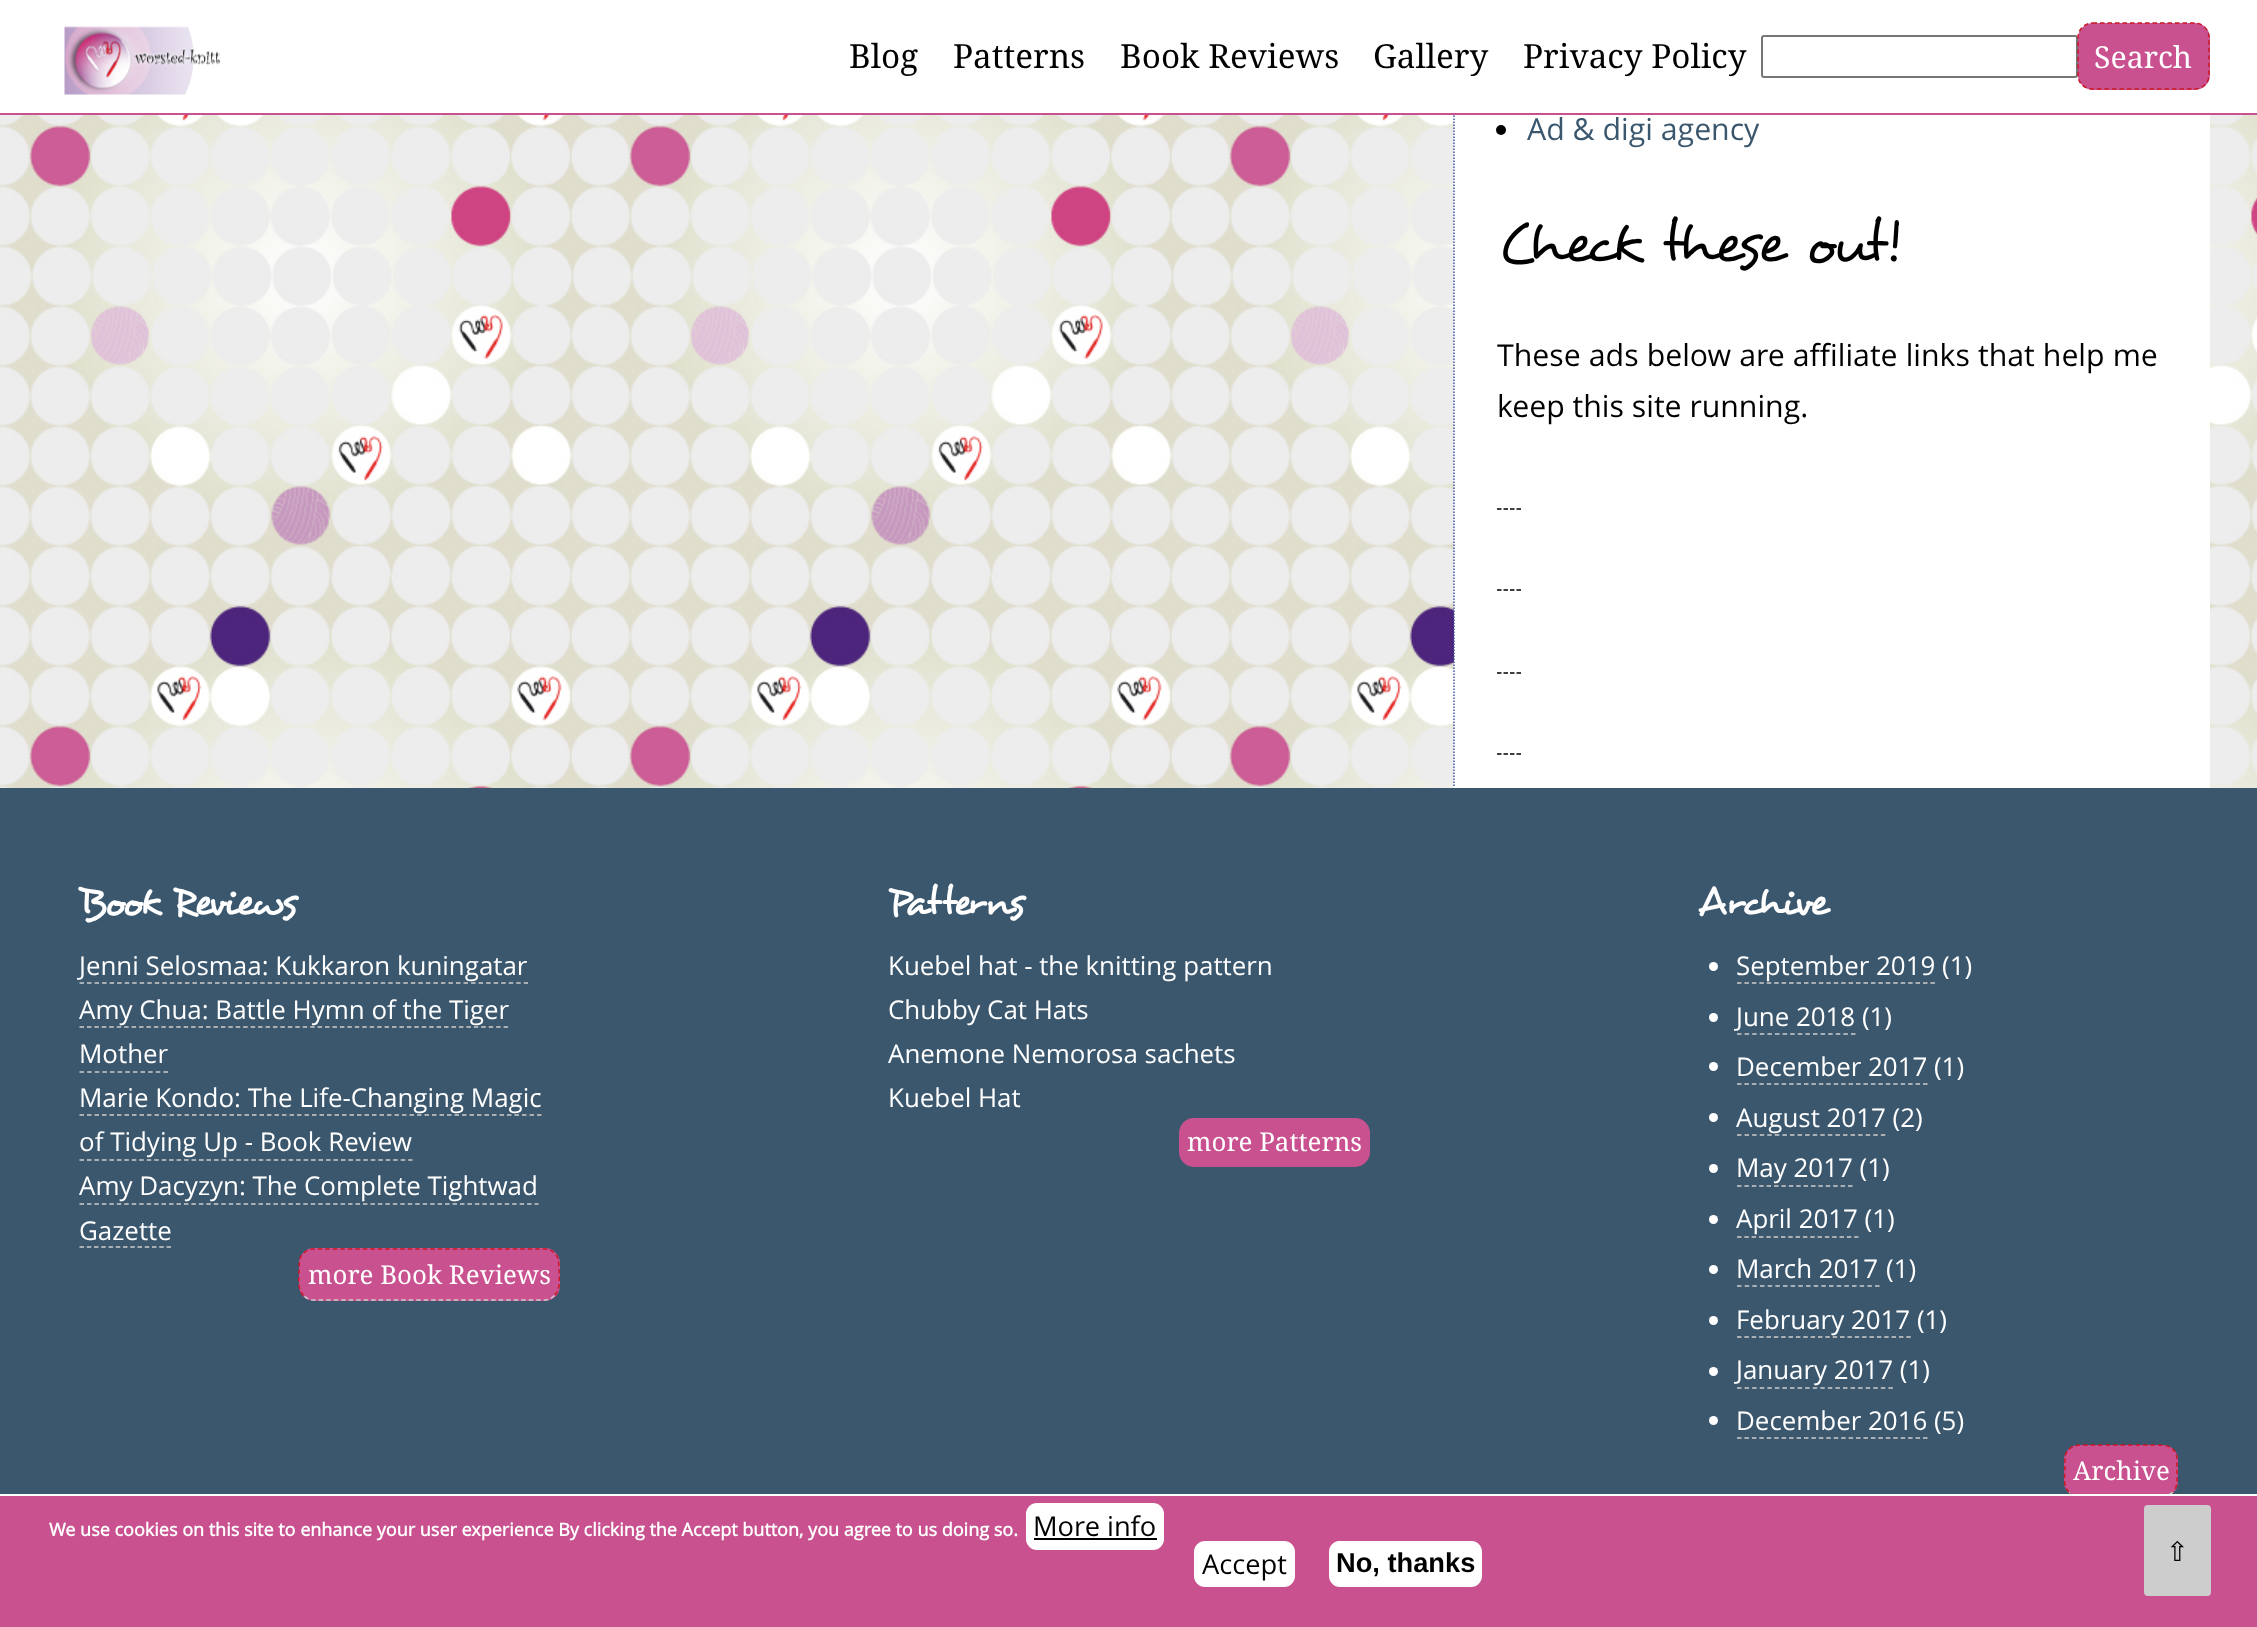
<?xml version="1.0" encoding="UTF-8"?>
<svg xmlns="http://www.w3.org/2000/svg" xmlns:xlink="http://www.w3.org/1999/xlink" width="2257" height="1627">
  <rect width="100%" height="100%" fill="#ffffff" />
  <image x="0" y="115" width="2257" height="673" xlink:href="image1.png" />
  <rect x="1454" y="115" width="756" height="673" fill="#ffffff" />
  <path d="M 1454 -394.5 v 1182" fill="none" stroke="#3e57a4" stroke-width="1.5" stroke-dasharray="1.5 1.5" />
  <rect x="1453" y="1" width="2" height="112" fill="#ffffff" />
  <rect y="113" width="2257" height="2" fill="#c9518f" />
  <image x="64" y="26" width="157" height="69" xlink:href="image2.png" />
  <rect x="1762" y="36" width="315" height="41" rx="2" fill="none" stroke="#767676" stroke-width="2" />
  <rect x="2078" y="23" width="132" height="67" rx="15" fill="#c9518f" />
  <path d="M 2092.5 23 h 102 c 8 0 14.5 6.5 14.5 14.5 v 37.5 c 0 8 -6.5 14 -14.5 14 h -102 c -8 0 -14.5 -6 -14.5 -14 v -37.5 c 0 -8 6.5 -14.5 14.5 -14.5 z" fill="none" stroke="#cc1725" stroke-width="1.5" stroke-dasharray="4.5 3" />
  <circle cx="1501" cy="130" r="5" fill="#000000" />
  <path d="M 1497 509 h 24" fill="none" stroke="#000000" stroke-width="1.5" stroke-dasharray="4.5 2" />
  <path d="M 1497 590 h 24" fill="none" stroke="#000000" stroke-width="1.5" stroke-dasharray="4.5 2" />
  <path d="M 1497 673 h 24" fill="none" stroke="#000000" stroke-width="1.5" stroke-dasharray="4.5 2" />
  <path d="M 1497 754 h 24" fill="none" stroke="#000000" stroke-width="1.5" stroke-dasharray="4.5 2" />
  <rect y="788" width="2257" height="706" fill="#3b576e" />
  <path d="M 79.5 983 h 448.5" fill="none" stroke="#cdcdcd" stroke-width="1.5" stroke-dasharray="4.5 3.03" />
  <path d="M 79.5 1027 h 429" fill="none" stroke="#cdcdcd" stroke-width="1.5" stroke-dasharray="4.5 2.94" />
  <path d="M 79.5 1072 h 88.5" fill="none" stroke="#cdcdcd" stroke-width="1.5" stroke-dasharray="4.5 3.13" />
  <path d="M 79.5 1115 h 462" fill="none" stroke="#cdcdcd" stroke-width="1.5" stroke-dasharray="4.5 3" />
  <path d="M 79.5 1160 h 333" fill="none" stroke="#cdcdcd" stroke-width="1.5" stroke-dasharray="4.5 2.97" />
  <path d="M 79.5 1204 h 459" fill="none" stroke="#cdcdcd" stroke-width="1.5" stroke-dasharray="4.5 2.96" />
  <path d="M 79.5 1247 h 91.5" fill="none" stroke="#cdcdcd" stroke-width="1.5" stroke-dasharray="4.5 2.75" />
  <rect x="299" y="1248" width="261" height="53" rx="15" fill="#c9518f" />
  <path d="M 554.5 1295.5 c -2.5 2.5 -6 4.5 -10 4.5 h -231 c -4 0 -7.5 -2 -10 -4.5" fill="none" stroke="#cdcdcd" stroke-width="1.5" stroke-dasharray="4.5 3" />
  <path d="M 303.5 1295.5 c -6.5 -6 -4.5 -17 -4.5 -25 l 0.5 -10.5 c 1.5 -6.5 7.5 -11 14 -11 h 231 c 6.5 0 12.5 4.5 14 11 l 0.5 10.5 c 0 8 2 19 -4.5 25" fill="none" stroke="#cc1725" stroke-width="1.5" stroke-dasharray="4.5 3" />
  <rect x="1179" y="1118" width="191" height="49" rx="15" fill="#c9518f" />
  <circle cx="1713.5" cy="966.5" r="4.5" fill="#ffffff" />
  <path d="M 1737 983 h 198" fill="none" stroke="#cdcdcd" stroke-width="1.5" stroke-dasharray="4.5 2.94" />
  <circle cx="1713.5" cy="1017.5" r="4.5" fill="#ffffff" />
  <path d="M 1737 1034 h 118.5" fill="none" stroke="#cdcdcd" stroke-width="1.5" stroke-dasharray="4.5 3.1" />
  <circle cx="1713.5" cy="1066.5" r="4.5" fill="#ffffff" />
  <path d="M 1737 1084 h 190.5" fill="none" stroke="#cdcdcd" stroke-width="1.5" stroke-dasharray="4.5 2.94" />
  <circle cx="1713.5" cy="1117.5" r="4.5" fill="#ffffff" />
  <path d="M 1737 1135 h 148.5" fill="none" stroke="#cdcdcd" stroke-width="1.5" stroke-dasharray="4.5 3.07" />
  <circle cx="1713.5" cy="1168.5" r="4.5" fill="#ffffff" />
  <path d="M 1737 1186 h 115.5" fill="none" stroke="#cdcdcd" stroke-width="1.5" stroke-dasharray="4.5 2.9" />
  <circle cx="1713.5" cy="1219.5" r="4.5" fill="#ffffff" />
  <path d="M 1737 1237 h 121.5" fill="none" stroke="#cdcdcd" stroke-width="1.5" stroke-dasharray="4.5 2.82" />
  <circle cx="1713.5" cy="1269.5" r="4.5" fill="#ffffff" />
  <path d="M 1737 1286 h 142.5" fill="none" stroke="#cdcdcd" stroke-width="1.5" stroke-dasharray="4.5 3.17" />
  <circle cx="1713.5" cy="1320.5" r="4.5" fill="#ffffff" />
  <path d="M 1737 1337 h 174" fill="none" stroke="#cdcdcd" stroke-width="1.5" stroke-dasharray="4.5 2.86" />
  <circle cx="1713.5" cy="1371.5" r="4.5" fill="#ffffff" />
  <path d="M 1737 1388 h 156" fill="none" stroke="#cdcdcd" stroke-width="1.5" stroke-dasharray="4.5 3.07" />
  <circle cx="1713.5" cy="1420.5" r="4.5" fill="#ffffff" />
  <path d="M 1737 1438 h 190.5" fill="none" stroke="#cdcdcd" stroke-width="1.5" stroke-dasharray="4.5 2.94" />
  <rect x="2064" y="1445" width="114" height="52" rx="15" fill="#c9518f" />
  <path d="M 2173 1492 c -2.5 2.5 -6 4 -10 4 h -84 c -4 0 -7.5 -1.5 -10 -4" fill="none" stroke="#cdcdcd" stroke-width="1.5" stroke-dasharray="4.5 3" />
  <path d="M 2069 1492 c -6.5 -6 -4 -17 -4 -25 v -10.5 c 3 -13.5 17.5 -11.5 28 -11.5 h 56 c 11 0 26.5 -2 28 13 v 13 c 0 7 1.5 15.5 -4 21" fill="none" stroke="#cc1725" stroke-width="1.5" stroke-dasharray="4.5 3" />
  <rect y="1496" width="2257" height="131" fill="#c9518f" />
  <rect x="2070" y="1494" width="102" height="2" fill="#ffffff" />
  <rect x="1026" y="1503" width="138" height="47" rx="11" fill="#ffffff" />
  <rect x="1034" y="1538" width="123" height="2" fill="#000000" />
  <rect x="1194" y="1541" width="101" height="46" rx="11" fill="#ffffff" />
  <rect x="1329" y="1541" width="153" height="46" rx="11" fill="#ffffff" />
  <path d="M 1340 1542 h 132 c 5 0 10 5 10 10 c 0 -6 -5 -11 -11 -11 h -131 c -6 0 -11 5 -11 11 c 0 -5 5 -10 11 -10 z" fill="#ffffff" />
  <rect x="2143" y="1504" width="69" height="93" rx="5" fill="#cdcdcd" stroke="#c9518f" stroke-width="2" />
  <text x="849" y="68" style="font-family: Noto Serif Georgian; font-size: 33.25px; fill: #000000">Blog</text>
  <text x="953" y="68" style="font-family: Noto Serif Georgian; font-size: 33.25px; fill: #000000">Patterns</text>
  <text x="1120" y="68" style="font-family: Noto Serif Georgian; font-size: 33.25px; fill: #000000">Book Reviews</text>
  <text x="1373" y="68" style="font-family: Noto Serif Georgian; font-size: 33.25px; fill: #000000">Gallery</text>
  <text x="1523" y="68" style="font-family: Noto Serif Georgian; font-size: 33.25px; fill: #000000">Privacy Policy</text>
  <text x="2094" y="68" style="font-family: Noto Serif Georgian; font-size: 30.25px; fill: #ffffff">Search</text>
  <text x="1527" y="140" style="font-family: Open Sans; font-size: 30.25px; fill: #3b576e">Ad &amp; digi agency</text>
  <text x="1497" y="259" style="font-family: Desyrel; font-size: 59px; fill: #000000">Check these out!</text>
  <text x="1497" y="366" word-spacing="0.25" style="font-family: Open Sans; font-size: 30.25px; fill: #000000">These ads below are affiliate links that help me</text>
  <text x="1497" y="417" style="font-family: Open Sans; font-size: 30.25px; fill: #000000">keep this site running.</text>
  <text x="79" y="913" style="font-family: Desyrel; font-size: 39px; font-weight: bold; fill: #ffffff">Book Reviews</text>
  <text x="79" y="975" style="font-family: Open Sans; font-size: 25.9px; fill: #ffffff">Jenni Selosmaa: Kukkaron kuningatar</text>
  <text x="79" y="1019" style="font-family: Open Sans; font-size: 25.9px; fill: #ffffff">Amy Chua: Battle Hymn of the Tiger</text>
  <text x="79" y="1063" style="font-family: Open Sans; font-size: 25.9px; fill: #ffffff">Mother</text>
  <text x="79" y="1107" style="font-family: Open Sans; font-size: 25.9px; fill: #ffffff">Marie Kondo: The Life-Changing Magic</text>
  <text x="79" y="1151" style="font-family: Open Sans; font-size: 25.9px; fill: #ffffff">of Tidying Up - Book Review</text>
  <text x="79" y="1195" style="font-family: Open Sans; font-size: 25.9px; fill: #ffffff">Amy Dacyzyn: The Complete Tightwad</text>
  <text x="79" y="1240" style="font-family: Open Sans; font-size: 25.9px; fill: #ffffff">Gazette</text>
  <text x="308" y="1284" style="font-family: Noto Serif Georgian; font-size: 25.9px; fill: #ffffff">more Book Reviews</text>
  <text x="888" y="913" style="font-family: Desyrel; font-size: 39px; font-weight: bold; fill: #ffffff">Patterns</text>
  <text x="888" y="975" style="font-family: Open Sans; font-size: 25.9px; fill: #ffffff">Kuebel hat - the knitting pattern</text>
  <text x="888" y="1019" style="font-family: Open Sans; font-size: 25.9px; fill: #ffffff">Chubby Cat Hats</text>
  <text x="888" y="1063" style="font-family: Open Sans; font-size: 25.9px; fill: #ffffff">Anemone Nemorosa sachets</text>
  <text x="888" y="1107" style="font-family: Open Sans; font-size: 25.9px; fill: #ffffff">Kuebel Hat</text>
  <text x="1187" y="1151" style="font-family: Noto Serif Georgian; font-size: 25.9px; fill: #ffffff">more Patterns</text>
  <text x="1698" y="913" style="font-family: Desyrel; font-size: 39px; font-weight: bold; fill: #ffffff">Archive</text>
  <text x="1736" y="975" style="font-family: Open Sans; font-size: 25.9px; fill: #ffffff">September 2019 (1)</text>
  <text x="1736" y="1026" style="font-family: Open Sans; font-size: 25.9px; fill: #ffffff">June 2018 (1)</text>
  <text x="1736" y="1076" style="font-family: Open Sans; font-size: 25.9px; fill: #ffffff">December 2017 (1)</text>
  <text x="1736" y="1127" style="font-family: Open Sans; font-size: 25.9px; fill: #ffffff">August 2017 (2)</text>
  <text x="1736" y="1177" style="font-family: Open Sans; font-size: 25.9px; fill: #ffffff">May 2017 (1)</text>
  <text x="1736" y="1228" style="font-family: Open Sans; font-size: 25.9px; fill: #ffffff">April 2017 (1)</text>
  <text x="1736" y="1278" style="font-family: Open Sans; font-size: 25.9px; fill: #ffffff">March 2017</text>
  <text x="1886" y="1278" style="font-family: Open Sans; font-size: 25.9px; fill: #ffffff">(1)</text>
  <text x="1736" y="1329" style="font-family: Open Sans; font-size: 25.9px; fill: #ffffff">February 2017 (1)</text>
  <text x="1736" y="1379" style="font-family: Open Sans; font-size: 25.9px; fill: #ffffff">January 2017 (1)</text>
  <text x="1736" y="1430" style="font-family: Open Sans; font-size: 25.9px; fill: #ffffff">December 2016 (5)</text>
  <text x="2073" y="1480" style="font-family: Noto Serif Georgian; font-size: 25.9px; fill: #ffffff">Archive</text>
  <text x="49" y="1536" style="font-family: Open Sans; font-size: 18px; font-weight: bold; fill: #ffffff">We use cookies on this site to enhance your user experience By clicking the Accept button, you agree to us doing so.</text>
  <text x="1033" y="1536" style="font-family: Open Sans; font-size: 27.25px; fill: #000000">More info</text>
  <text x="1202" y="1574" style="font-family: Open Sans; font-size: 27.25px; fill: #000000">Accept</text>
  <text x="1336" y="1572" style="font-family: Liberation Sans; font-size: 27.25px; font-weight: bold; fill: #000000">No, thanks</text>
  <text x="2166" y="1561" style="font-family: DejaVu Sans; font-size: 27px; fill: #000000">⇧</text>
</svg>
